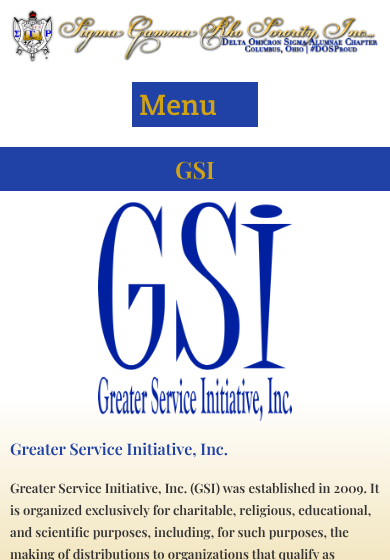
<?xml version="1.0" encoding="UTF-8"?>
<svg xmlns="http://www.w3.org/2000/svg" xmlns:xlink="http://www.w3.org/1999/xlink" width="390" height="560">
  <defs>
    <linearGradient id="g1" gradientUnits="userSpaceOnUse" x1="195" y1="191" x2="195" y2="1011"><stop offset="0.25" stop-color="#ffffff" /><stop offset="1" stop-color="#d0a215" /></linearGradient>
  </defs>
  <rect width="100%" height="100%" fill="#ffffff" />
  <image x="11" y="10" width="367" height="52" xlink:href="image1.png" />
  <rect x="132" y="82" width="126" height="45" fill="#2041a5" />
  <rect y="147" width="390" height="44" fill="#2041a5" />
  <rect y="403" width="390" height="157" fill="url(#g1)" />
  <image x="98" y="201" width="194" height="220" xlink:href="image2.png" />
  <text x="139" y="115" style="font-family: Crete Round; font-size: 30px; fill: #d0a215">Menu</text>
  <text x="175" y="179" style="font-family: Playfair Display; font-size: 24px; font-weight: 600; fill: #d0a215">GSI</text>
  <text x="10" y="455" style="font-family: Playfair Display; font-size: 16px; font-weight: 600; fill: #2041a5">Greater Service Initiative, Inc.</text>
  <text x="10" y="493" style="font-family: Playfair Display; font-size: 13px; font-weight: 600; fill: #333333">Greater Service Initiative, Inc. (GSI) was established in 2009. It</text>
  <text x="10" y="515" style="font-family: Playfair Display; font-size: 13px; font-weight: 600; fill: #333333">is organized exclusively for charitable, religious, educational,</text>
  <text x="10" y="537" style="font-family: Playfair Display; font-size: 13px; font-weight: 600; fill: #333333">and scientific purposes, including, for such purposes, the</text>
  <text x="10" y="559" style="font-family: Playfair Display; font-size: 13px; font-weight: 600; fill: #333333">making of distributions to organizations that qualify as</text>
</svg>
